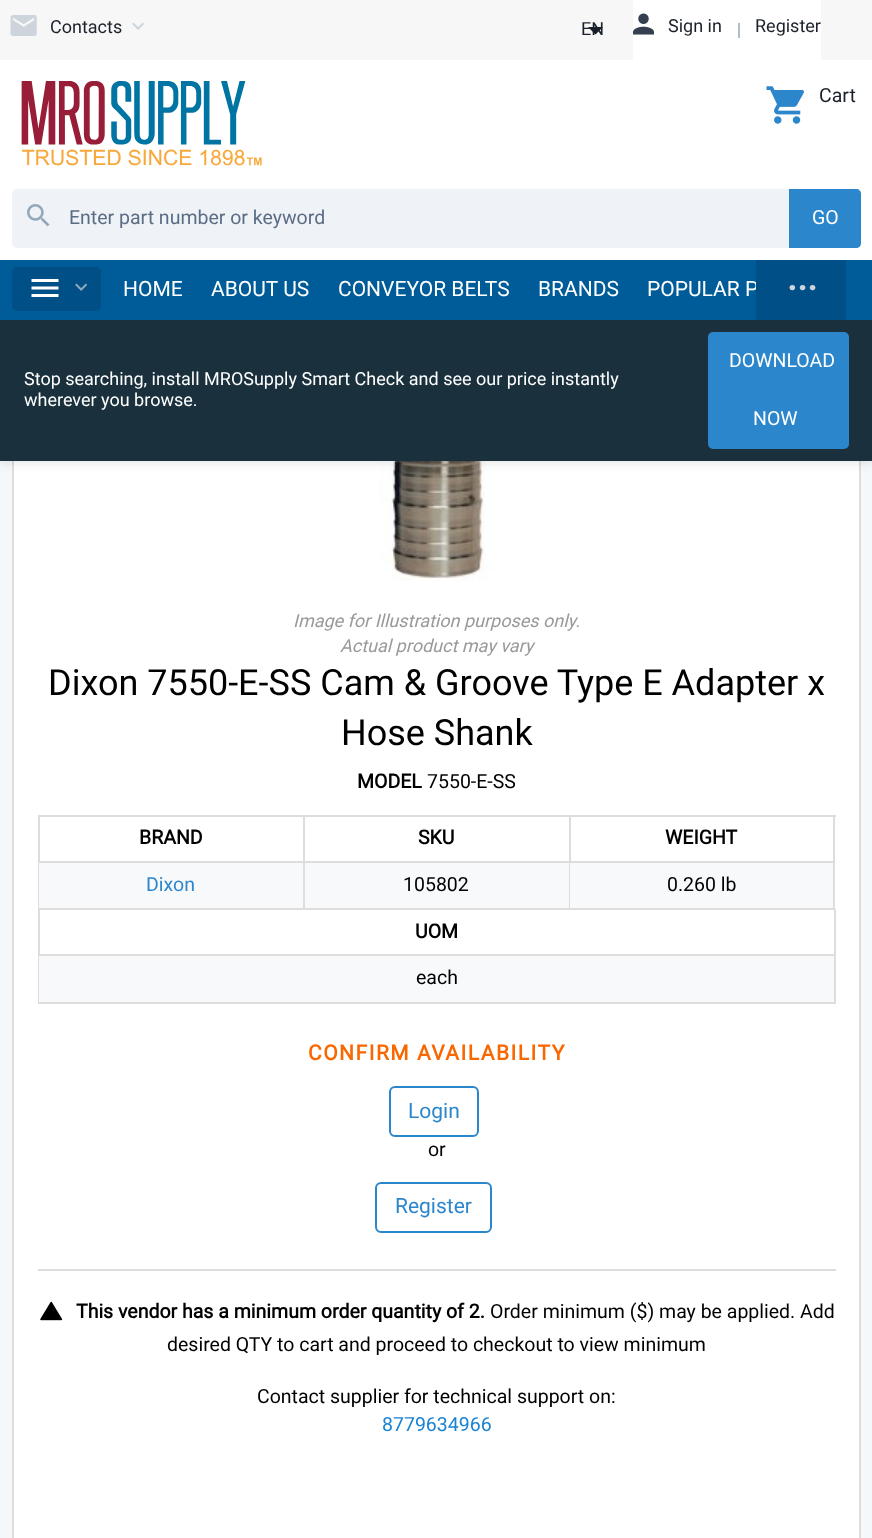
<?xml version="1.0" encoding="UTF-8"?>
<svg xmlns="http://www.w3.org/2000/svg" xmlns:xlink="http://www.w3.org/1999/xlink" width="872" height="1538">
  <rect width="100%" height="100%" fill="#f5f8fb" />
  <rect x="14" y="461" width="845" height="1077" fill="#ffffff" />
  <rect x="13" y="337" width="847" height="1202" fill="none" stroke="#dddddd" stroke-width="2" />
  <image x="375" y="461" width="123" height="120" xlink:href="image9.png" />
  <rect y="3" width="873" height="461" fill="#1c222b" fill-opacity="0.1" filter="blur(4px)" />
  <rect y="60" width="872" height="200" fill="#ffffff" />
  <rect width="872" height="60" fill="#f7f7f7" />
  <image x="10" y="15" width="27" height="21" xlink:href="image1.png" />
  <image x="132" y="22" width="12" height="8" xlink:href="image2.png" />
  <rect x="633" width="188" height="60" fill="#ffffff" />
  <image x="633" y="13" width="21" height="22" xlink:href="image3.png" />
  <rect x="738" y="23" width="2" height="15" fill="#b0bfcd" />
  <image x="766" y="86" width="38" height="38" xlink:href="image4.png" />
  <image x="21" y="81" width="241" height="85" xlink:href="image5.png" />
  <rect x="13" y="190" width="847" height="57" rx="4" fill="#eff2f6" stroke="#eff2f6" stroke-width="2" />
  <image x="27" y="204" width="23" height="23" xlink:href="image6.png" />
  <path d="M 789 189 h 67 c 3 0 5 2 5 5 v 49 c 0 3 -2 5 -5 5 h -67 z" fill="#2b86cc" />
  <rect y="260" width="872" height="60" fill="#005c98" />
  <rect x="12" y="267" width="89" height="44" rx="5" fill="#004f87" />
  <image x="31" y="279" width="28" height="18" xlink:href="image7.png" />
  <image x="75" y="283" width="13" height="8" xlink:href="image8.png" />
  <rect y="320" width="872" height="141" fill="#1a313d" />
  <rect x="708" y="332" width="141" height="117" rx="5" fill="#2b86cc" />
  <rect x="38" y="815" width="798" height="2" fill="#dddddd" />
  <rect x="38" y="815" width="2" height="189" fill="#dddddd" />
  <rect x="303" y="816" width="2" height="93" fill="#dddddd" />
  <rect x="39" y="908" width="266" height="2" fill="#dddddd" />
  <rect x="39" y="861" width="264" height="2" fill="#dddddd" />
  <rect x="39" y="863" width="264" height="45" fill="#f8f9fb" />
  <rect x="569" y="816" width="2" height="93" fill="#dddddd" />
  <rect x="305" y="908" width="265" height="2" fill="#dddddd" />
  <rect x="305" y="861" width="264" height="2" fill="#dddddd" />
  <rect x="305" y="863" width="264" height="45" fill="#f8f9fb" />
  <rect x="833" y="816" width="2" height="93" fill="#dddddd" />
  <rect x="570" y="908" width="264" height="2" fill="#dddddd" />
  <rect x="570" y="861" width="263" height="2" fill="#dddddd" />
  <rect x="570" y="863" width="263" height="45" fill="#f8f9fb" />
  <rect x="834" y="909" width="2" height="95" fill="#dddddd" />
  <rect x="39" y="1002" width="797" height="2" fill="#dddddd" />
  <rect x="39" y="954" width="795" height="2" fill="#dddddd" />
  <rect x="39" y="956" width="795" height="46" fill="#f8f9fb" />
  <rect x="38" y="1269" width="798" height="2" fill="#dddddd" />
  <rect x="390" y="1087" width="88" height="49" rx="5" fill="none" stroke="#2c86cc" stroke-width="2" />
  <rect x="376" y="1183" width="115" height="49" rx="5" fill="none" stroke="#2c86cc" stroke-width="2" />
  <image x="40" y="1301" width="23" height="20" xlink:href="image10.png" />
  <text x="50" y="33" style="font-family: Roboto; font-size: 18px; fill: #1b212b">Contacts</text>
  <text x="581" y="35" style="font-family: Roboto; font-size: 18px; fill: #1b212b">EN</text>
  <path d="M 588 27 l 7.5 7.5 l 7.5 -7.5 z" fill="#191f28" />
  <text x="668" y="32" style="font-family: Roboto; font-size: 18px; fill: #1b212b">Sign in</text>
  <text x="755" y="32" style="font-family: Roboto; font-size: 18px; fill: #1b212b">Register</text>
  <text x="819" y="102" style="font-family: Roboto; font-size: 19.5px; fill: #1b212b">Cart</text>
  <text x="69" y="224" style="font-family: Roboto; font-size: 19.5px; fill: #5b6c85">Enter part number or keyword</text>
  <text x="812" y="224" style="font-family: Roboto; font-size: 19.5px; fill: #ffffff">GO</text>
  <text x="123" y="296" style="font-family: Roboto; font-size: 21px; fill: #ffffff">HOME</text>
  <text x="211" y="296" style="font-family: Roboto; font-size: 21px; fill: #ffffff">ABOUT US</text>
  <text x="338" y="296" style="font-family: Roboto; font-size: 21px; fill: #ffffff">CONVEYOR BELTS</text>
  <text x="538" y="296" style="font-family: Roboto; font-size: 21px; fill: #ffffff">BRANDS</text>
  <text x="647" y="296" style="font-family: Roboto; font-size: 21px; fill: #ffffff">POPULAR P</text>
  <rect x="756" y="260" width="90" height="60" fill="#004f87" />
  <text x="786" y="290" style="font-family: Roboto; font-size: 50px; letter-spacing: -3px; fill: #cdd4db">...</text>
  <text x="24" y="385" style="font-family: Roboto; font-size: 18px; fill: #ffffff">Stop searching, install MROSupply Smart Check and see our price instantly</text>
  <text x="24" y="406" style="font-family: Roboto; font-size: 18px; fill: #ffffff">wherever you browse.</text>
  <text x="729" y="367" style="font-family: Roboto; font-size: 19.5px; fill: #ffffff">DOWNLOAD</text>
  <text x="753" y="425" style="font-family: Roboto; font-size: 19.5px; fill: #ffffff">NOW</text>
  <text x="293" y="627" style="font-family: Roboto; font-size: 18px; font-style: italic; fill: #999999">Image for Illustration purposes only.</text>
  <text x="340" y="652" style="font-family: Roboto; font-size: 18px; font-style: italic; fill: #999999">Actual product may vary</text>
  <text x="48" y="695" style="font-family: Roboto; font-size: 36px; fill: #000000">Dixon 7550-E-SS Cam &amp; Groove Type E Adapter x</text>
  <text x="341" y="745" style="font-family: Roboto; font-size: 36px; fill: #000000">Hose Shank</text>
  <text x="357" y="788" style="font-family: Roboto; font-size: 19.5px; font-weight: bold; fill: #000000">MODEL</text>
  <text x="427" y="788" style="font-family: Roboto; font-size: 19.5px; fill: #000000">7550-E-SS</text>
  <text x="139" y="844" style="font-family: Roboto; font-size: 19.5px; font-weight: bold; fill: #000000">BRAND</text>
  <text x="146" y="891" style="font-family: Roboto; font-size: 19.5px; fill: #2c86cc">Dixon</text>
  <text x="418" y="844" style="font-family: Roboto; font-size: 19.5px; font-weight: bold; fill: #000000">SKU</text>
  <text x="403" y="891" style="font-family: Roboto; font-size: 19.5px; fill: #000000">105802</text>
  <text x="665" y="844" style="font-family: Roboto; font-size: 19.5px; font-weight: bold; fill: #000000">WEIGHT</text>
  <text x="667" y="891" style="font-family: Roboto; font-size: 19.5px; fill: #000000">0.260 lb</text>
  <text x="415" y="938" style="font-family: Roboto; font-size: 19.5px; font-weight: bold; fill: #000000">UOM</text>
  <text x="416" y="984" style="font-family: Roboto; font-size: 19.5px; fill: #000000">each</text>
  <text x="308" y="1060" style="font-family: Roboto; font-size: 21px; font-weight: bold; letter-spacing: 1.5px; fill: #f96700">CONFIRM AVAILABILITY</text>
  <text x="408" y="1118" style="font-family: Roboto; font-size: 21px; fill: #2c86cc">Login</text>
  <text x="428" y="1156" style="font-family: Roboto; font-size: 19.5px; fill: #000000">or</text>
  <text x="395" y="1213" style="font-family: Roboto; font-size: 21px; fill: #2c86cc">Register</text>
  <text x="76" y="1318" style="font-family: Roboto; font-size: 19.5px; font-weight: bold; fill: #000000">This vendor has a minimum order quantity of 2.</text>
  <text x="490" y="1318" style="font-family: Roboto; font-size: 19.5px; fill: #000000">Order minimum ($) may be applied. Add</text>
  <text x="167" y="1351" style="font-family: Roboto; font-size: 19.5px; fill: #000000">desired QTY to cart and proceed to checkout to view minimum</text>
  <text x="257" y="1403" style="font-family: Roboto; font-size: 19.5px; fill: #000000">Contact supplier for technical support on:</text>
  <text x="382" y="1431" style="font-family: Roboto; font-size: 19.5px; fill: #1a83d2">8779634966</text>
</svg>
